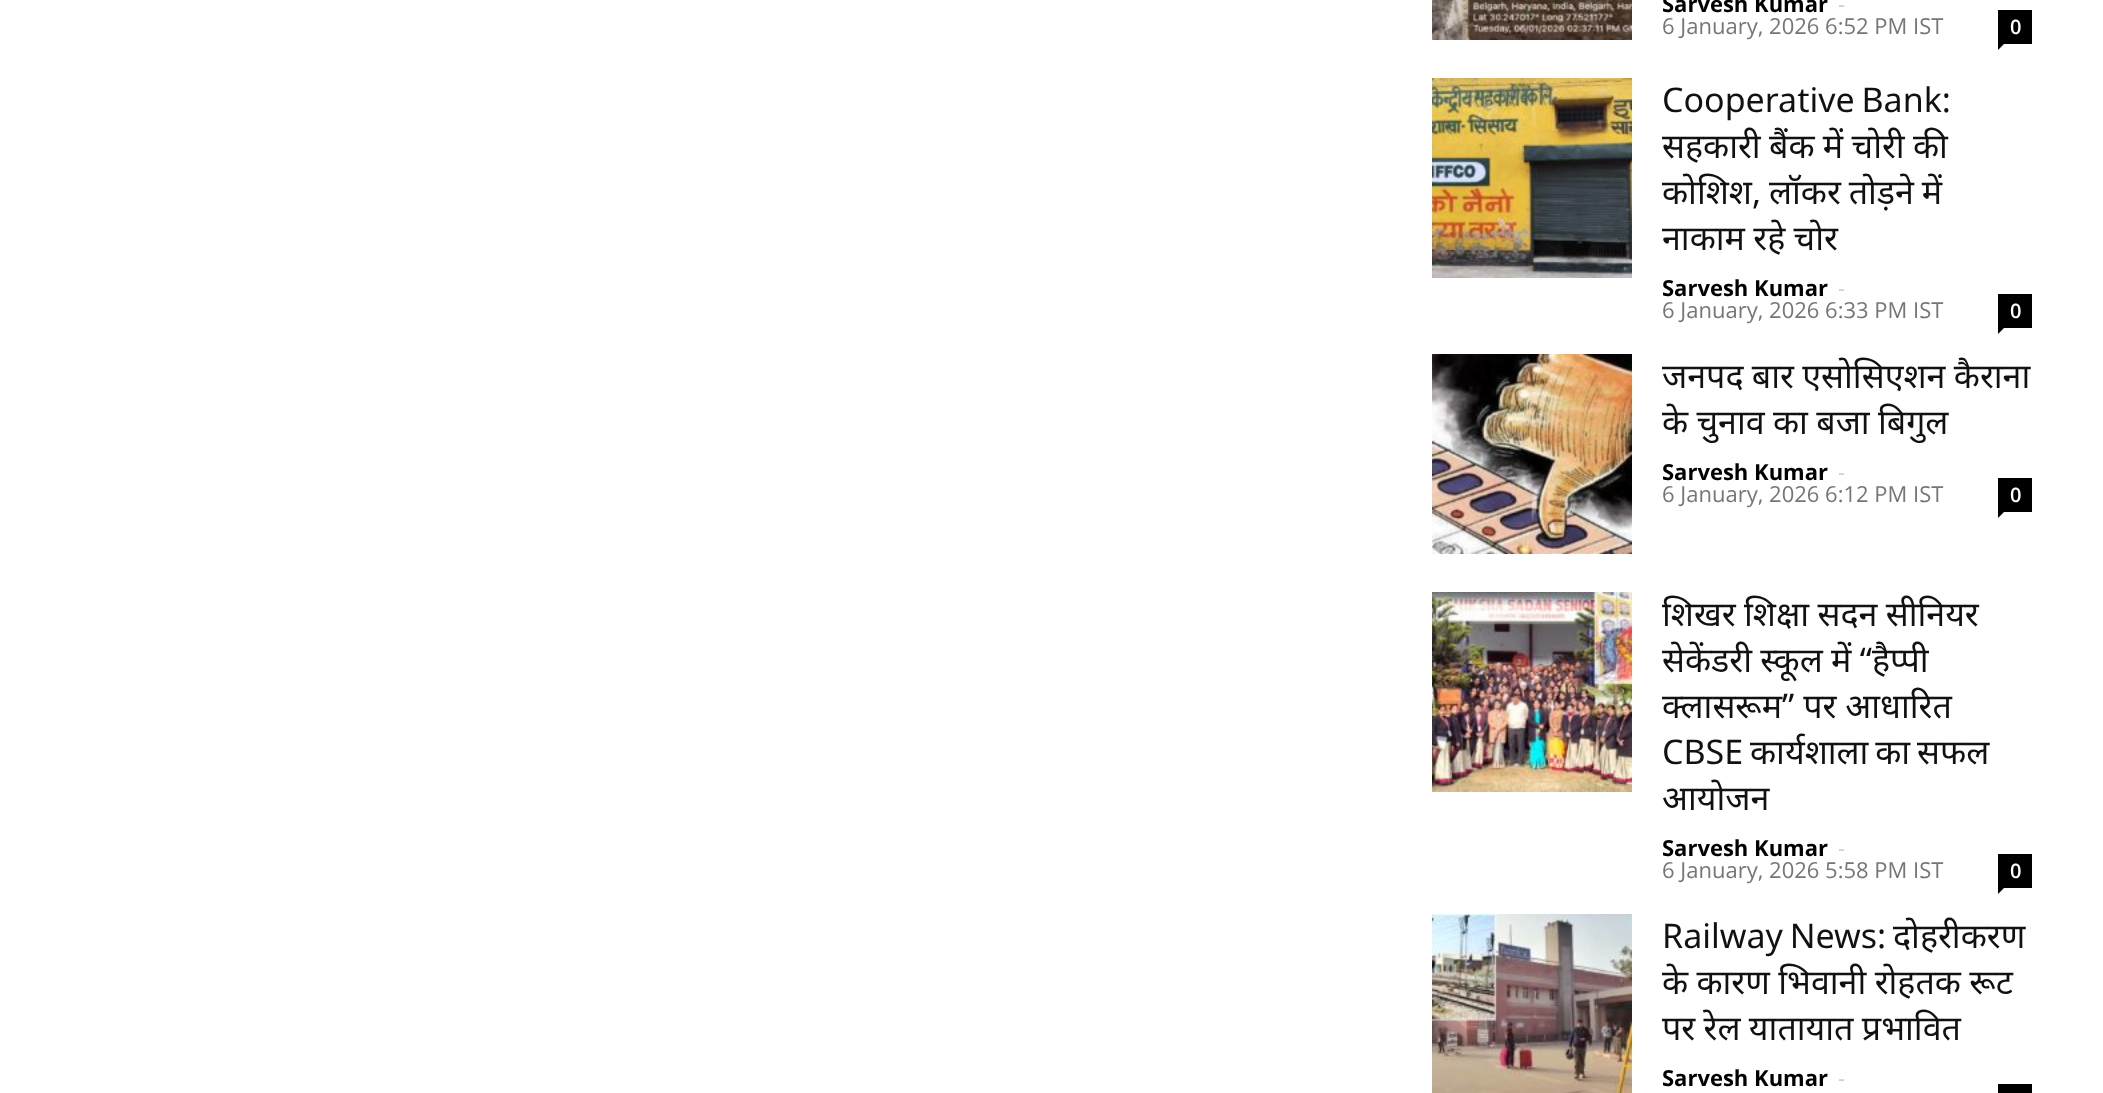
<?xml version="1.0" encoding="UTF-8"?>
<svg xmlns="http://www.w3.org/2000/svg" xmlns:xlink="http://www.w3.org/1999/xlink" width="2103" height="1093">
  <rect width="100%" height="100%" fill="#ffffff" />
  <image x="1432" y="0" width="200" height="40" xlink:href="image1.png" />
  <rect x="1998" y="10" width="34" height="34" fill="#000000" />
  <path d="M 1998 44 h 6 l -6 6 z" fill="#000000" />
  <image x="1432" y="78" width="200" height="200" xlink:href="image2.png" />
  <rect x="1998" y="294" width="34" height="34" fill="#000000" />
  <path d="M 1998 328 h 6 l -6 6 z" fill="#000000" />
  <image x="1432" y="354" width="200" height="200" xlink:href="image3.png" />
  <rect x="1998" y="478" width="34" height="34" fill="#000000" />
  <path d="M 1998 512 h 6 l -6 6 z" fill="#000000" />
  <image x="1432" y="592" width="200" height="200" xlink:href="image4.png" />
  <rect x="1998" y="854" width="34" height="34" fill="#000000" />
  <path d="M 1998 888 h 6 l -6 6 z" fill="#000000" />
  <image x="1432" y="914" width="200" height="179" xlink:href="image5.png" />
  <rect x="1998" y="1084" width="34" height="9" fill="#000000" />
  <text x="1662" y="12" style="font-family: Open Sans; font-size: 22px; font-weight: bold; fill: #000000">Sarvesh Kumar</text>
  <text x="1838" y="12" style="font-family: Open Sans; font-size: 22px; fill: #cccccc">-</text>
  <text x="1662" y="34" style="font-family: Open Sans; font-size: 22px; fill: #767676">6 January, 2026 6:52 PM IST</text>
  <text x="2010" y="34" style="font-family: Open Sans; font-size: 20px; font-weight: 600; fill: #ffffff">0</text>
  <text x="1662" y="112" word-spacing="-2" style="font-family: Noto Sans; font-size: 34px; fill: #111111">Cooperative Bank:</text>
  <text x="1662" y="158" word-spacing="-0.5" style="font-family: Noto Sans; font-size: 34px; fill: #111111">सहकारी बैंक में चोरी की</text>
  <text x="1662" y="204" word-spacing="-1" style="font-family: Noto Sans; font-size: 34px; fill: #111111">कोशिश, लॉकर तोड़ने में</text>
  <text x="1662" y="250" word-spacing="-0.5" style="font-family: Noto Sans; font-size: 34px; fill: #111111">नाकाम रहे चोर</text>
  <text x="1662" y="296" style="font-family: Open Sans; font-size: 22px; font-weight: bold; fill: #000000">Sarvesh Kumar</text>
  <text x="1838" y="296" style="font-family: Open Sans; font-size: 22px; fill: #cccccc">-</text>
  <text x="1662" y="318" style="font-family: Open Sans; font-size: 22px; fill: #767676">6 January, 2026 6:33 PM IST</text>
  <text x="2010" y="318" style="font-family: Open Sans; font-size: 20px; font-weight: 600; fill: #ffffff">0</text>
  <text x="1662" y="388" word-spacing="-0.5" style="font-family: Noto Sans; font-size: 34px; fill: #111111">जनपद बार एसोसिएशन कैराना</text>
  <text x="1662" y="434" word-spacing="-0.5" style="font-family: Noto Sans; font-size: 34px; fill: #111111">के चुनाव का बजा बिगुल</text>
  <text x="1662" y="480" style="font-family: Open Sans; font-size: 22px; font-weight: bold; fill: #000000">Sarvesh Kumar</text>
  <text x="1838" y="480" style="font-family: Open Sans; font-size: 22px; fill: #cccccc">-</text>
  <text x="1662" y="502" style="font-family: Open Sans; font-size: 22px; fill: #767676">6 January, 2026 6:12 PM IST</text>
  <text x="2010" y="502" style="font-family: Open Sans; font-size: 20px; font-weight: 600; fill: #ffffff">0</text>
  <text x="1662" y="626" word-spacing="-0.5" style="font-family: Noto Sans; font-size: 34px; fill: #111111">शिखर शिक्षा सदन सीनियर</text>
  <text x="1662" y="672" word-spacing="-0.5" style="font-family: Noto Sans; font-size: 34px; fill: #111111">सेकेंडरी स्कूल में “हैप्पी</text>
  <text x="1662" y="718" style="font-family: Noto Sans; font-size: 34px; fill: #111111">क्लासरूम” पर आधारित</text>
  <text x="1662" y="764" word-spacing="-2" style="font-family: Noto Sans; font-size: 34px; fill: #111111">CBSE कार्यशाला का सफल</text>
  <text x="1662" y="810" style="font-family: Noto Sans; font-size: 34px; fill: #111111">आयोजन</text>
  <text x="1662" y="856" style="font-family: Open Sans; font-size: 22px; font-weight: bold; fill: #000000">Sarvesh Kumar</text>
  <text x="1838" y="856" style="font-family: Open Sans; font-size: 22px; fill: #cccccc">-</text>
  <text x="1662" y="878" style="font-family: Open Sans; font-size: 22px; fill: #767676">6 January, 2026 5:58 PM IST</text>
  <text x="2010" y="878" style="font-family: Open Sans; font-size: 20px; font-weight: 600; fill: #ffffff">0</text>
  <text x="1662" y="948" word-spacing="-2" style="font-family: Noto Sans; font-size: 34px; fill: #111111">Railway News: दोहरीकरण</text>
  <text x="1662" y="994" word-spacing="-0.5" style="font-family: Noto Sans; font-size: 34px; fill: #111111">के कारण भिवानी रोहतक रूट</text>
  <text x="1662" y="1040" word-spacing="-0.5" style="font-family: Noto Sans; font-size: 34px; fill: #111111">पर रेल यातायात प्रभावित</text>
  <text x="1662" y="1086" style="font-family: Open Sans; font-size: 22px; font-weight: bold; fill: #000000">Sarvesh Kumar</text>
  <text x="1838" y="1086" style="font-family: Open Sans; font-size: 22px; fill: #cccccc">-</text>
</svg>
